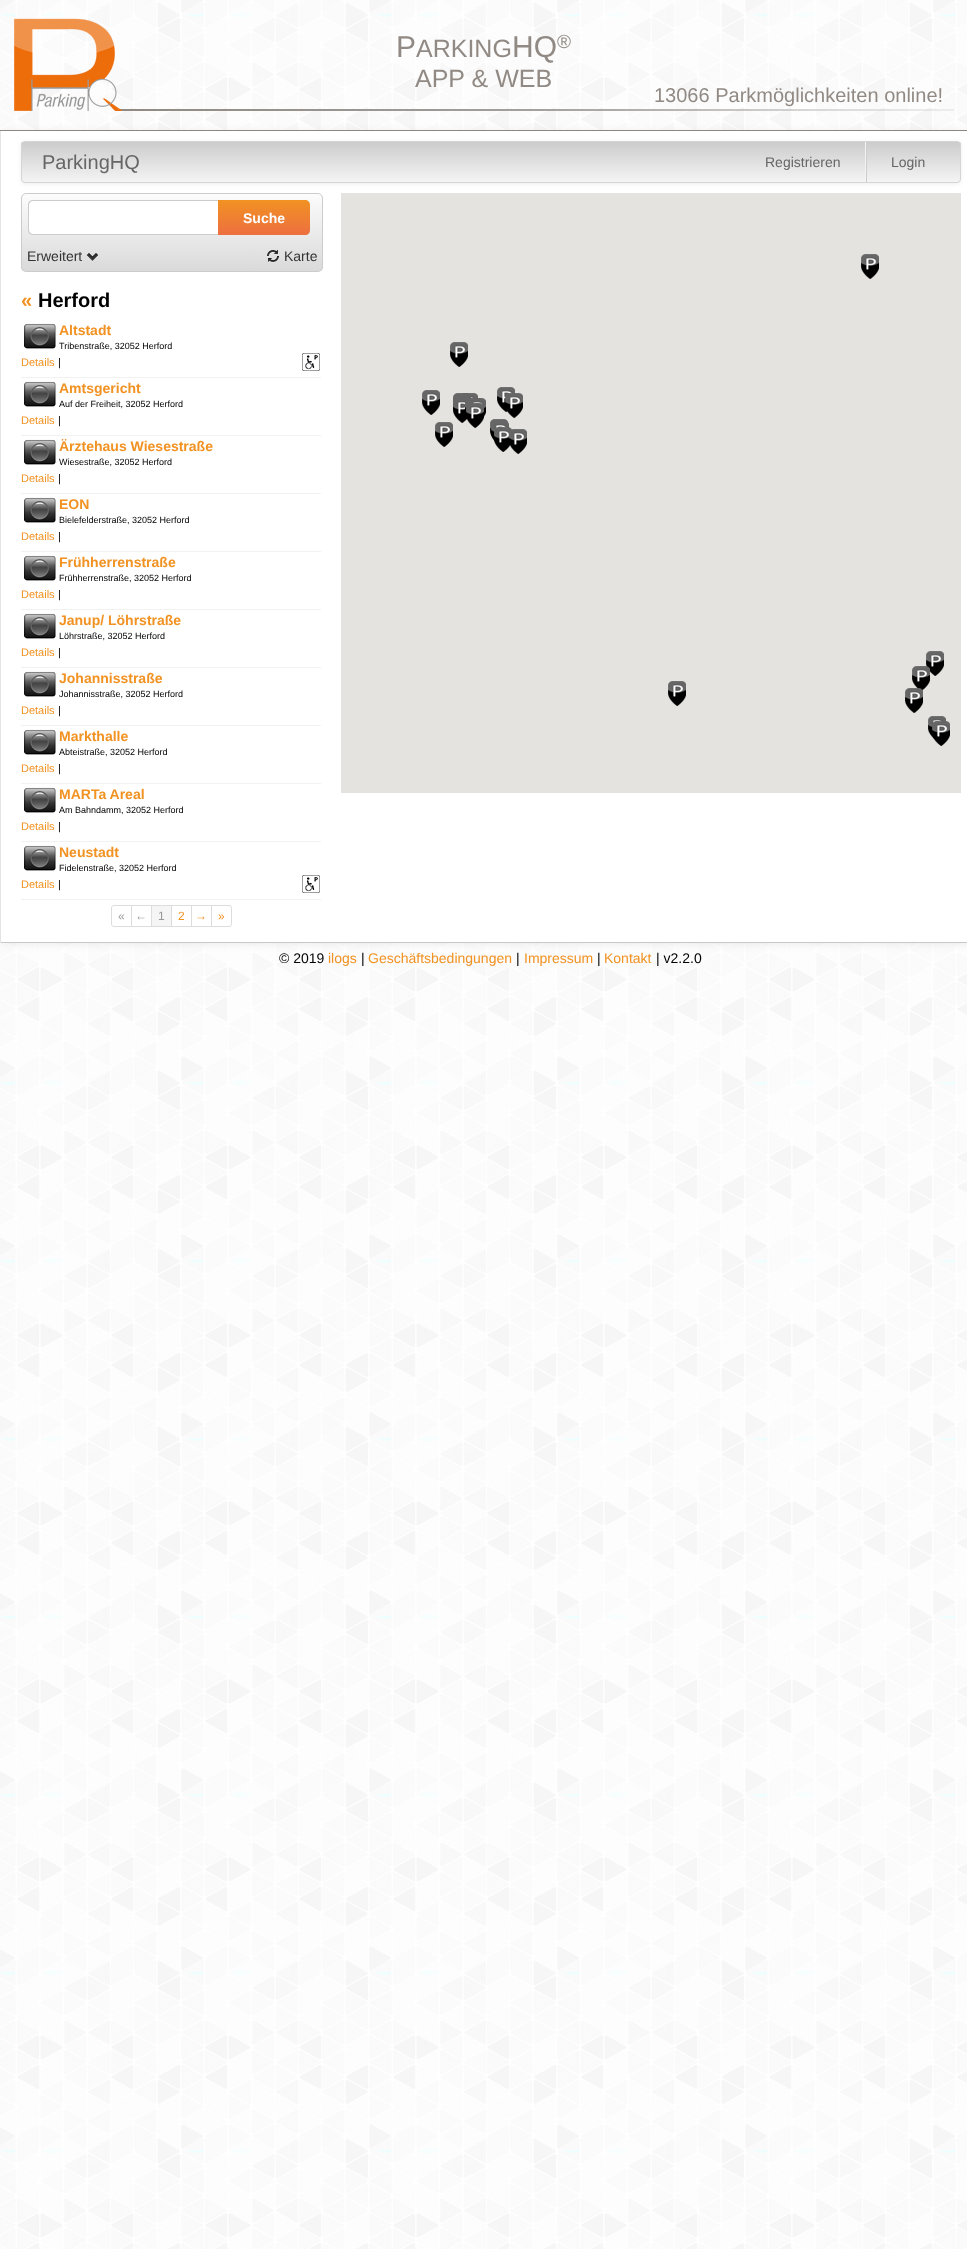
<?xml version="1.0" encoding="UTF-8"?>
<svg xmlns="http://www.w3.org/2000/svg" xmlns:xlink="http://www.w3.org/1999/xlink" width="967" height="2249">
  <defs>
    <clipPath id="clip1"><rect x="21" y="141" width="940" height="42" rx="4" /></clipPath>
    <linearGradient id="g1" gradientUnits="userSpaceOnUse" x1="491" y1="142" x2="491" y2="182"><stop offset="0" stop-color="#cccccc" /><stop offset="1" stop-color="#f4f4f4" /></linearGradient>
    <clipPath id="clip2"><rect x="21" y="193" width="302" height="79" rx="5" /></clipPath>
    <linearGradient id="g2" gradientUnits="userSpaceOnUse" x1="172" y1="194" x2="172" y2="271"><stop offset="0" stop-color="#fcfcfc" /><stop offset="1" stop-color="#dadada" /></linearGradient>
    <linearGradient id="g3" gradientUnits="userSpaceOnUse" x1="264" y1="200" x2="264" y2="235"><stop offset="0" stop-color="#f19222" /><stop offset="1" stop-color="#ed6f40" /></linearGradient>
  </defs>
  <rect width="100%" height="100%" fill="#ffffff" />
  <image x="0" y="0" width="967" height="2249" xlink:href="image1.png" />
  <rect y="130" width="967" height="1" fill="#918a84" />
  <image x="14" y="18" width="940" height="93" xlink:href="image2.png" />
  <rect x="2" y="132" width="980" height="812" fill="#000000" fill-opacity="0.07" filter="blur(5px)" />
  <rect x="1" y="131" width="966" height="811" fill="#ffffff" />
  <rect y="942" width="967" height="1" fill="#c8c8c8" />
  <rect y="131" width="1" height="812" fill="#e4e4e4" />
  <rect x="21" y="142" width="940" height="42" rx="4" fill="#000000" fill-opacity="0.07" filter="blur(2px)" />
  <g clip-path="url(#clip1)">
    <rect x="21" y="142" width="940" height="40" fill="url(#g1)" />
  </g>
  <rect x="21.5" y="141.5" width="939" height="41" rx="3.5" fill="none" stroke="#d5d5d5" />
  <rect x="866" y="142" width="1" height="40" fill="#cccccc" />
  <rect x="865" y="142" width="1" height="40" fill="#f4f4f4" />
  <g clip-path="url(#clip2)">
    <rect x="21" y="194" width="302" height="77" fill="url(#g2)" />
  </g>
  <rect x="21.5" y="193.5" width="301" height="78" rx="4.5" fill="none" stroke="#cccccc" />
  <path d="M 33 200 h 185 v 35 h -185 c -3 0 -5 -2 -5 -5 v -25 c 0 -3 2 -5 5 -5 z" fill="#ffffff" />
  <path d="M 33 200 h 185 v 35 h -185 c -3 0 -5 -2 -5 -5 v -25 c 0 -3 2 -5 5 -5 z m 0 1 h 185 v 33 h -185 c -2 0 -4 -2 -4 -4 v -25 c 0 -2 2 -4 4 -4 z" fill="#cccccc" fill-rule="evenodd" />
  <path d="M 218 200 h 87 c 3 0 5 2 5 5 v 25 c 0 3 -2 5 -5 5 h -87 z" fill="url(#g3)" />
  <image x="86" y="253" width="12" height="9" xlink:href="image3.png" />
  <image x="267" y="250" width="12" height="13" xlink:href="image4.png" />
  <rect x="21" y="377" width="300" height="1" fill="#f2f2f2" />
  <image x="24" y="323" width="32" height="26" xlink:href="image5.png" />
  <image x="302" y="353" width="18" height="18" xlink:href="image6.png" />
  <rect x="21" y="435" width="300" height="1" fill="#f2f2f2" />
  <image x="24" y="381" width="32" height="26" xlink:href="image5.png" />
  <rect x="21" y="493" width="300" height="1" fill="#f2f2f2" />
  <image x="24" y="439" width="32" height="26" xlink:href="image5.png" />
  <rect x="21" y="551" width="300" height="1" fill="#f2f2f2" />
  <image x="24" y="497" width="32" height="26" xlink:href="image5.png" />
  <rect x="21" y="609" width="300" height="1" fill="#f2f2f2" />
  <image x="24" y="555" width="32" height="26" xlink:href="image5.png" />
  <rect x="21" y="667" width="300" height="1" fill="#f2f2f2" />
  <image x="24" y="613" width="32" height="26" xlink:href="image5.png" />
  <rect x="21" y="725" width="300" height="1" fill="#f2f2f2" />
  <image x="24" y="671" width="32" height="26" xlink:href="image5.png" />
  <rect x="21" y="783" width="300" height="1" fill="#f2f2f2" />
  <image x="24" y="729" width="32" height="26" xlink:href="image5.png" />
  <rect x="21" y="841" width="300" height="1" fill="#f2f2f2" />
  <image x="24" y="787" width="32" height="26" xlink:href="image5.png" />
  <rect x="21" y="899" width="300" height="1" fill="#f2f2f2" />
  <image x="24" y="845" width="32" height="26" xlink:href="image5.png" />
  <image x="302" y="875" width="18" height="18" xlink:href="image6.png" />
  <path d="M 114 905.5 h 17.5 v 21 h -17.5 c -1.5 0 -2.5 -1 -2.5 -2.5 v -16 c 0 -1.5 1 -2.5 2.5 -2.5 z" fill="none" stroke="#dddddd" />
  <rect x="132" y="905" width="80" height="1" fill="#dddddd" />
  <rect x="151" y="905" width="1" height="22" fill="#dddddd" />
  <rect x="132" y="926" width="20" height="1" fill="#dddddd" />
  <rect x="152" y="906" width="19" height="20" fill="#f5f5f5" />
  <rect x="171" y="905" width="1" height="22" fill="#dddddd" />
  <rect x="152" y="926" width="20" height="1" fill="#dddddd" />
  <rect x="191" y="905" width="1" height="22" fill="#dddddd" />
  <rect x="172" y="926" width="20" height="1" fill="#dddddd" />
  <rect x="211" y="905" width="1" height="22" fill="#dddddd" />
  <rect x="192" y="926" width="20" height="1" fill="#dddddd" />
  <path d="M 212 905 h 17 c 1.5 0 3 1.5 3 3 v 16 c 0 1.5 -1.5 3 -3 3 h -17 z m 0 1 h 17 c 1 0 2 1 2 2 v 16 c 0 1 -1 2 -2 2 h -17 z" fill="#dddddd" fill-rule="evenodd" />
  <rect x="341" y="193" width="620" height="600" fill="#e5e3df" />
  <image x="861" y="254" width="18" height="25" xlink:href="image7.png" />
  <image x="450" y="342" width="18" height="25" xlink:href="image7.png" />
  <image x="422" y="390" width="18" height="25" xlink:href="image7.png" />
  <image x="461" y="393" width="17" height="6" xlink:href="image9.png" />
  <image x="453" y="393" width="18" height="17" xlink:href="image8.png" />
  <image x="497" y="387" width="18" height="25" xlink:href="image7.png" />
  <image x="505" y="393" width="18" height="25" xlink:href="image10.png" />
  <image x="453" y="396" width="18" height="16" xlink:href="image11.png" />
  <image x="453" y="398" width="17" height="25" xlink:href="image12.png" />
  <image x="465" y="398" width="17" height="18" xlink:href="image13.png" />
  <image x="468" y="398" width="18" height="20" xlink:href="image14.png" />
  <image x="466" y="403" width="18" height="25" xlink:href="image15.png" />
  <image x="490" y="419" width="18" height="22" xlink:href="image16.png" />
  <image x="435" y="422" width="18" height="25" xlink:href="image7.png" />
  <image x="491" y="421" width="18" height="22" xlink:href="image17.png" />
  <image x="494" y="427" width="18" height="25" xlink:href="image18.png" />
  <image x="509" y="429" width="18" height="25" xlink:href="image19.png" />
  <image x="926" y="651" width="18" height="25" xlink:href="image7.png" />
  <image x="912" y="666" width="18" height="25" xlink:href="image20.png" />
  <image x="668" y="681" width="18" height="25" xlink:href="image7.png" />
  <image x="905" y="688" width="18" height="25" xlink:href="image21.png" />
  <image x="928" y="716" width="18" height="25" xlink:href="image7.png" />
  <image x="932" y="721" width="18" height="25" xlink:href="image22.png" />
  <text x="396" y="57" style="font-family: Liberation Sans; font-size: 30px; fill: #918a84">P</text>
  <text x="416" y="57" style="font-family: Liberation Sans; font-size: 25px; fill: #918a84">ARKING</text>
  <text x="512" y="57" style="font-family: Liberation Sans; font-size: 30px; fill: #918a84">HQ</text>
  <text x="557" y="48" style="font-family: Liberation Sans; font-size: 19px; fill: #918a84">®</text>
  <text x="415" y="87" style="font-family: Liberation Sans; font-size: 25px; fill: #918a84">APP &amp; WEB</text>
  <text x="654" y="102" style="font-family: Liberation Sans; font-size: 20px; fill: #918a84">13066 Parkmöglichkeiten online!</text>
  <text x="42" y="169" style="font-family: Liberation Sans; font-size: 20px; fill: #666666">ParkingHQ</text>
  <text x="765" y="167" style="font-family: Liberation Sans; font-size: 14px; fill: #666666">Registrieren</text>
  <text x="891" y="167" style="font-family: Liberation Sans; font-size: 14px; fill: #666666">Login</text>
  <text x="243" y="223" style="font-family: Liberation Sans; font-size: 14px; font-weight: bold; fill: #ffffff">Suche</text>
  <text x="27" y="261" style="font-family: Liberation Sans; font-size: 14px; fill: #333333">Erweitert</text>
  <text x="284" y="261" style="font-family: Liberation Sans; font-size: 14px; fill: #333333">Karte</text>
  <text x="21" y="307" style="font-family: Liberation Sans; font-size: 20px; font-weight: bold; fill: #f19222">«</text>
  <text x="38" y="307" style="font-family: Liberation Sans; font-size: 20px; font-weight: bold; fill: #000000">Herford</text>
  <text x="59" y="335" style="font-family: Liberation Sans; font-size: 14px; font-weight: bold; fill: #f19222">Altstadt</text>
  <text x="59" y="349" style="font-family: Liberation Sans; font-size: 9px; fill: #000000">Tribenstraße, 32052 Herford</text>
  <text x="21" y="366" style="font-family: Liberation Sans; font-size: 11px; fill: #f19222">Details</text>
  <text x="58" y="366" style="font-family: Liberation Sans; font-size: 11px; fill: #000000">|</text>
  <text x="59" y="393" style="font-family: Liberation Sans; font-size: 14px; font-weight: bold; fill: #f19222">Amtsgericht</text>
  <text x="59" y="407" style="font-family: Liberation Sans; font-size: 9px; fill: #000000">Auf der Freiheit, 32052 Herford</text>
  <text x="21" y="424" style="font-family: Liberation Sans; font-size: 11px; fill: #f19222">Details</text>
  <text x="58" y="424" style="font-family: Liberation Sans; font-size: 11px; fill: #000000">|</text>
  <text x="59" y="451" style="font-family: Liberation Sans; font-size: 14px; font-weight: bold; fill: #f19222">Ärztehaus Wiesestraße</text>
  <text x="59" y="465" style="font-family: Liberation Sans; font-size: 9px; fill: #000000">Wiesestraße, 32052 Herford</text>
  <text x="21" y="482" style="font-family: Liberation Sans; font-size: 11px; fill: #f19222">Details</text>
  <text x="58" y="482" style="font-family: Liberation Sans; font-size: 11px; fill: #000000">|</text>
  <text x="59" y="509" style="font-family: Liberation Sans; font-size: 14px; font-weight: bold; fill: #f19222">EON</text>
  <text x="59" y="523" style="font-family: Liberation Sans; font-size: 9px; fill: #000000">Bielefelderstraße, 32052 Herford</text>
  <text x="21" y="540" style="font-family: Liberation Sans; font-size: 11px; fill: #f19222">Details</text>
  <text x="58" y="540" style="font-family: Liberation Sans; font-size: 11px; fill: #000000">|</text>
  <text x="59" y="567" style="font-family: Liberation Sans; font-size: 14px; font-weight: bold; fill: #f19222">Frühherrenstraße</text>
  <text x="59" y="581" style="font-family: Liberation Sans; font-size: 9px; fill: #000000">Frühherrenstraße, 32052 Herford</text>
  <text x="21" y="598" style="font-family: Liberation Sans; font-size: 11px; fill: #f19222">Details</text>
  <text x="58" y="598" style="font-family: Liberation Sans; font-size: 11px; fill: #000000">|</text>
  <text x="59" y="625" style="font-family: Liberation Sans; font-size: 14px; font-weight: bold; fill: #f19222">Janup/ Löhrstraße</text>
  <text x="59" y="639" style="font-family: Liberation Sans; font-size: 9px; fill: #000000">Löhrstraße, 32052 Herford</text>
  <text x="21" y="656" style="font-family: Liberation Sans; font-size: 11px; fill: #f19222">Details</text>
  <text x="58" y="656" style="font-family: Liberation Sans; font-size: 11px; fill: #000000">|</text>
  <text x="59" y="683" style="font-family: Liberation Sans; font-size: 14px; font-weight: bold; fill: #f19222">Johannisstraße</text>
  <text x="59" y="697" style="font-family: Liberation Sans; font-size: 9px; fill: #000000">Johannisstraße, 32052 Herford</text>
  <text x="21" y="714" style="font-family: Liberation Sans; font-size: 11px; fill: #f19222">Details</text>
  <text x="58" y="714" style="font-family: Liberation Sans; font-size: 11px; fill: #000000">|</text>
  <text x="59" y="741" style="font-family: Liberation Sans; font-size: 14px; font-weight: bold; fill: #f19222">Markthalle</text>
  <text x="59" y="755" style="font-family: Liberation Sans; font-size: 9px; fill: #000000">Abteistraße, 32052 Herford</text>
  <text x="21" y="772" style="font-family: Liberation Sans; font-size: 11px; fill: #f19222">Details</text>
  <text x="58" y="772" style="font-family: Liberation Sans; font-size: 11px; fill: #000000">|</text>
  <text x="59" y="799" style="font-family: Liberation Sans; font-size: 14px; font-weight: bold; fill: #f19222">MARTa Areal</text>
  <text x="59" y="813" style="font-family: Liberation Sans; font-size: 9px; fill: #000000">Am Bahndamm, 32052 Herford</text>
  <text x="21" y="830" style="font-family: Liberation Sans; font-size: 11px; fill: #f19222">Details</text>
  <text x="58" y="830" style="font-family: Liberation Sans; font-size: 11px; fill: #000000">|</text>
  <text x="59" y="857" style="font-family: Liberation Sans; font-size: 14px; font-weight: bold; fill: #f19222">Neustadt</text>
  <text x="59" y="871" style="font-family: Liberation Sans; font-size: 9px; fill: #000000">Fidelenstraße, 32052 Herford</text>
  <text x="21" y="888" style="font-family: Liberation Sans; font-size: 11px; fill: #f19222">Details</text>
  <text x="58" y="888" style="font-family: Liberation Sans; font-size: 11px; fill: #000000">|</text>
  <text x="118" y="920" style="font-family: Liberation Sans; font-size: 12px; fill: #999999">«</text>
  <text x="135" y="920" style="font-family: Liberation Sans; font-size: 12px; fill: #999999">←</text>
  <text x="158" y="920" style="font-family: Liberation Sans; font-size: 12px; fill: #999999">1</text>
  <text x="178" y="920" style="font-family: Liberation Sans; font-size: 12px; fill: #f19222">2</text>
  <text x="195" y="920" style="font-family: Liberation Sans; font-size: 12px; fill: #f19222">→</text>
  <text x="218" y="920" style="font-family: Liberation Sans; font-size: 12px; fill: #f19222">»</text>
  <text x="279" y="963" style="font-family: Liberation Sans; font-size: 14px; fill: #000000">© 2019</text>
  <text x="328" y="963" style="font-family: Liberation Sans; font-size: 14px; fill: #f19222">ilogs</text>
  <text x="361" y="963" style="font-family: Liberation Sans; font-size: 14px; fill: #000000">|</text>
  <text x="368" y="963" style="font-family: Liberation Sans; font-size: 14px; fill: #f19222">Geschäftsbedingungen</text>
  <text x="516" y="963" style="font-family: Liberation Sans; font-size: 14px; fill: #000000">|</text>
  <text x="524" y="963" style="font-family: Liberation Sans; font-size: 14px; fill: #f19222">Impressum</text>
  <text x="597" y="963" style="font-family: Liberation Sans; font-size: 14px; fill: #000000">|</text>
  <text x="604" y="963" style="font-family: Liberation Sans; font-size: 14px; fill: #f19222">Kontakt</text>
  <text x="656" y="963" style="font-family: Liberation Sans; font-size: 14px; fill: #000000">| v2.2.0</text>
</svg>
